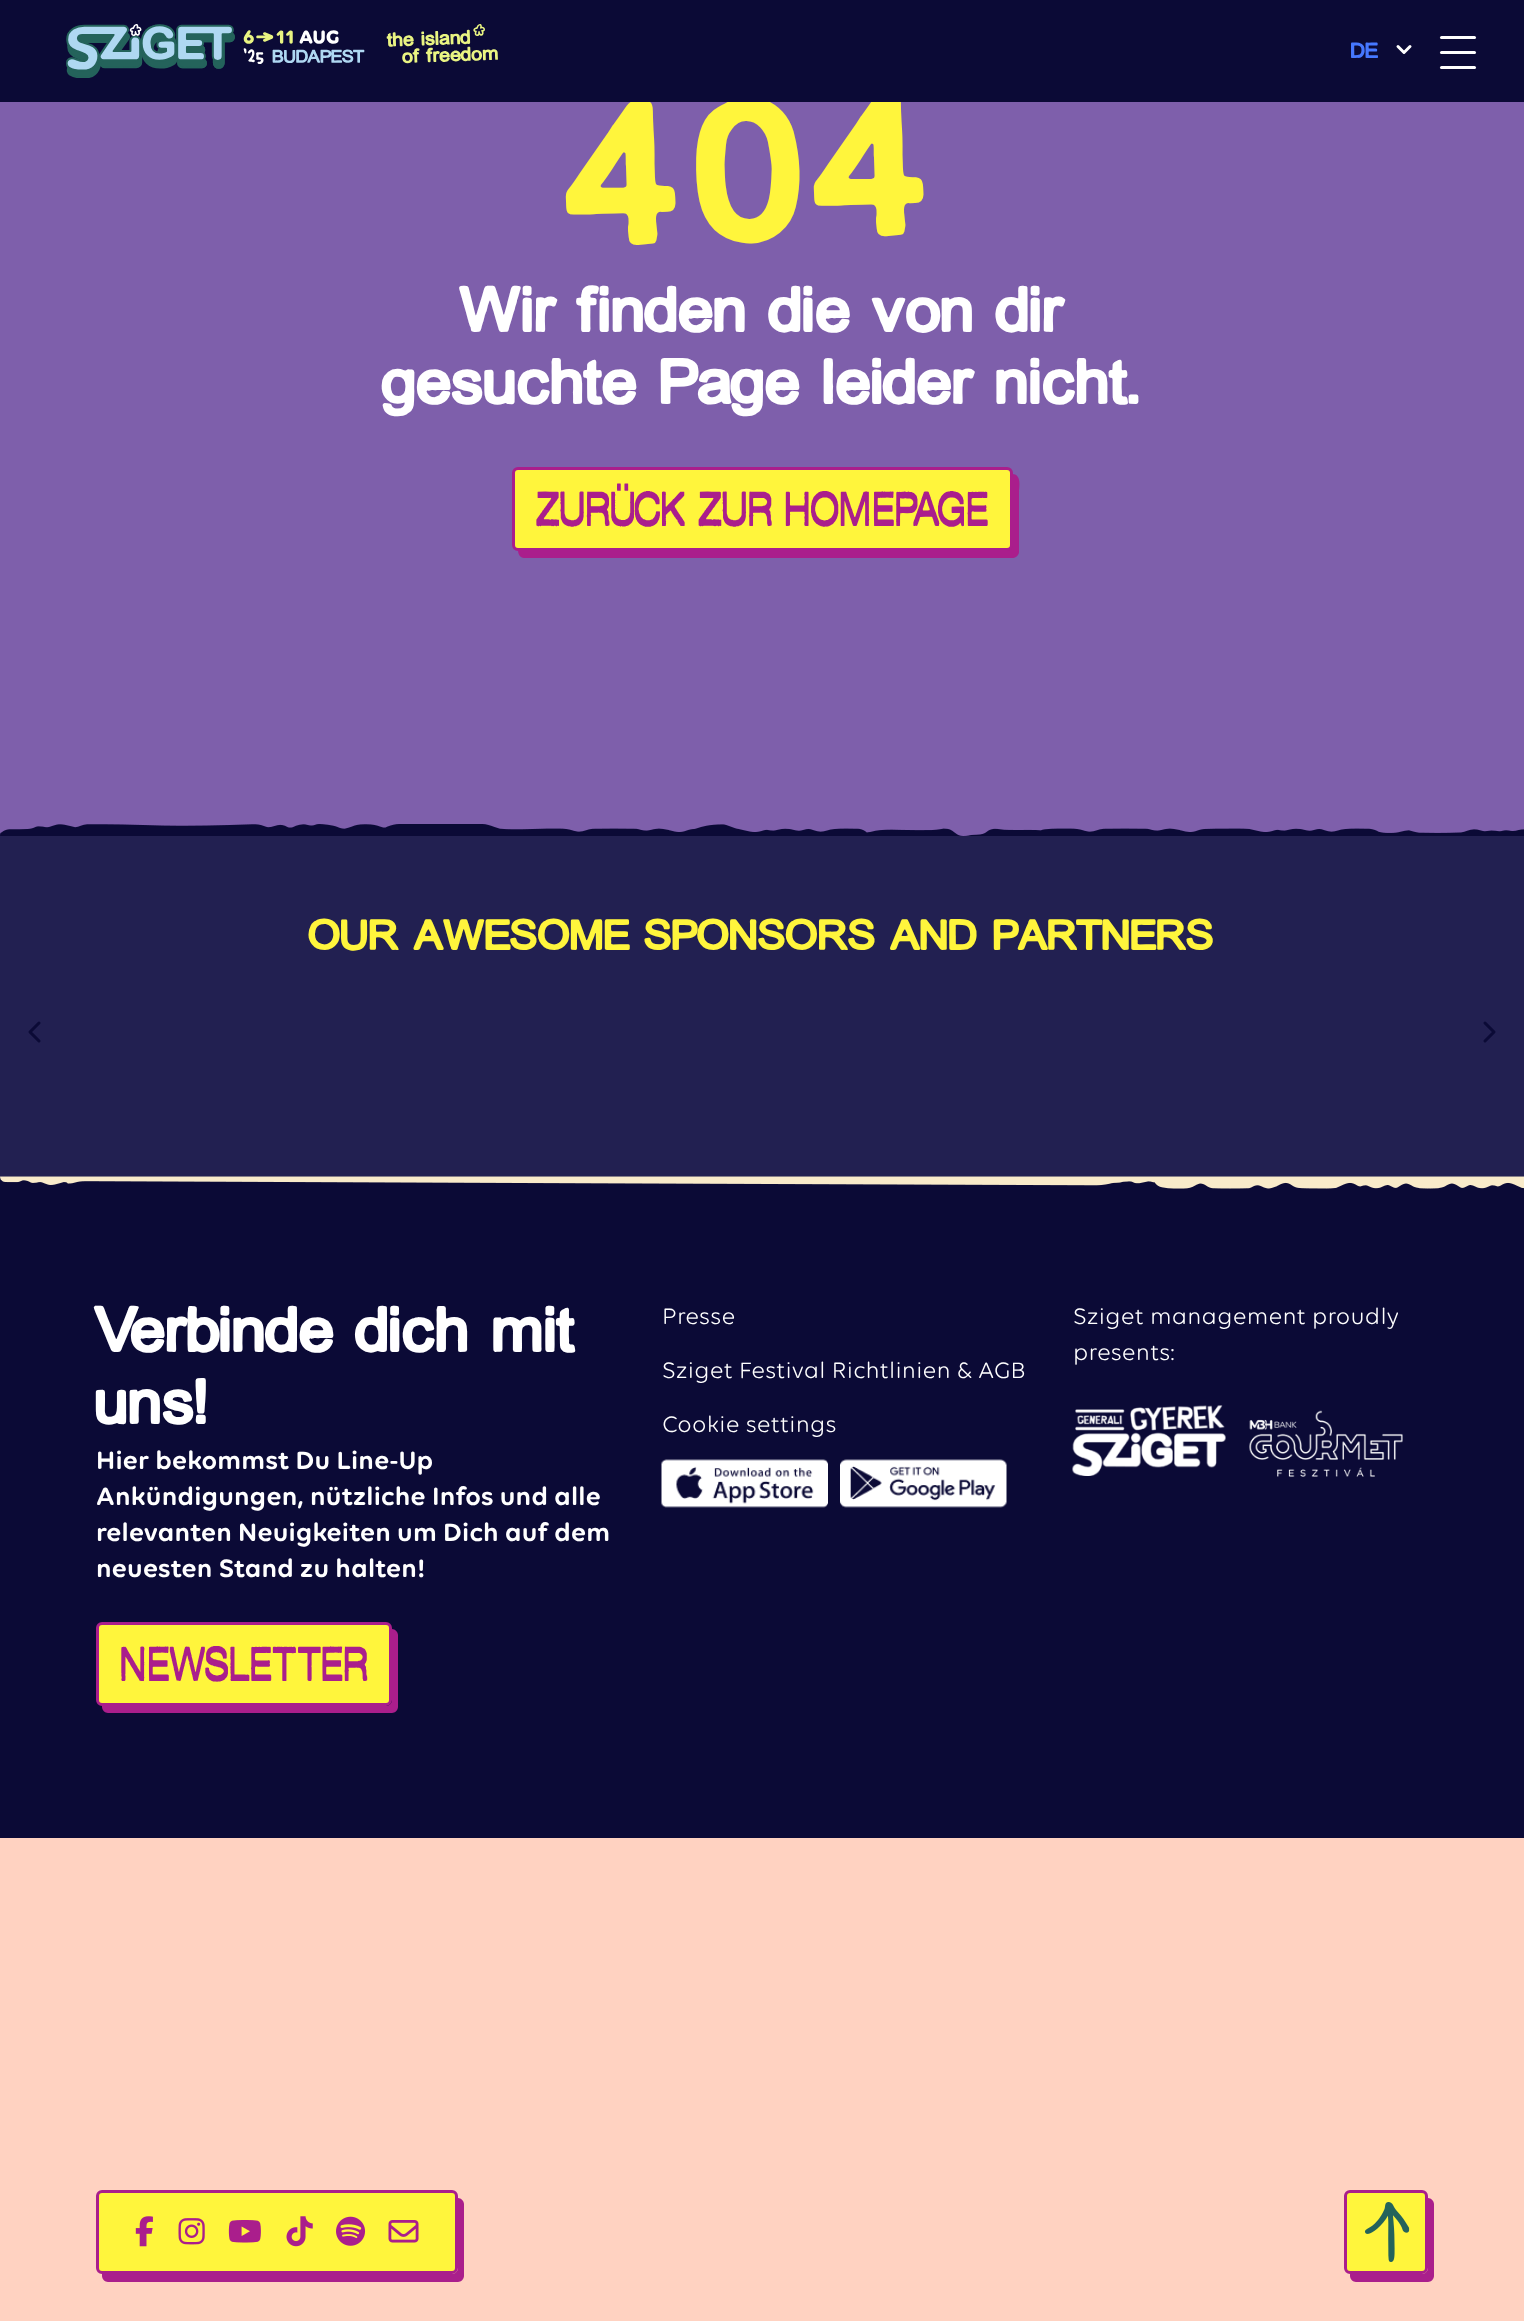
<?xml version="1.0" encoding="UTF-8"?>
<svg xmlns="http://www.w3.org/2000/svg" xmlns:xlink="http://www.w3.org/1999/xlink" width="1524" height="2321">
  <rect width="100%" height="100%" fill="#ffd2c1" />
  <rect y="102" width="1524" height="734" fill="#7e5fab" />
  <path d="M 518 550 c 0 4 2 8 6 8 h 489 c 3 0 6 -3 6 -6 v -60 c 0 -5 3 -18 -7 -18 v 70 c 0 4 -2 6 -6 6 z" fill="#aa1e8c" />
  <rect x="513.5" y="468.5" width="498" height="81" rx="4.5" fill="#fff53c" stroke="#aa1e8c" stroke-width="3" />
  <image x="0" y="824" width="1524" height="12" xlink:href="image2.png" />
  <rect y="836" width="1524" height="342" fill="#222051" />
  <path d="M 39 1041 l -9 -9 l 9 -9" fill="none" stroke="#0b0a36" stroke-width="3" stroke-linecap="round" stroke-linejoin="round" />
  <path d="M 1485 1023 l 9 9 l -9 9" fill="none" stroke="#0b0a36" stroke-width="3" stroke-linecap="round" stroke-linejoin="round" />
  <rect y="1178" width="1524" height="660" fill="#0b0a36" />
  <image x="0" y="1176" width="1524" height="13" xlink:href="image3.png" />
  <path d="M 102 1706 v 1 c 0 3 3 6 6 6 h 284 c 3 0 6 -3 6 -6 v -72 c 0 -3 -3 -6 -6 -6 v 71 c 0 3 -3 6 -6 6 z" fill="#aa1e8c" />
  <rect x="97.5" y="1623.5" width="293" height="81" rx="4.5" fill="#fff53c" stroke="#aa1e8c" stroke-width="3" />
  <image x="661" y="1459" width="167" height="49" xlink:href="image4.png" />
  <image x="840" y="1459" width="167" height="49" xlink:href="image5.png" />
  <image x="1072" y="1405" width="154" height="71" xlink:href="image6.png" />
  <image x="1249" y="1410" width="154" height="67" xlink:href="image7.png" />
  <path d="M 102 2274 v 2 c 0 3 3 6 6 6 h 350 c 3 0 6 -3 6 -6 v -72 c 0 -3 -3 -6 -6 -6 v 70 c 0 3 -3 6 -6 6 z" fill="#aa1e8c" />
  <rect x="97.5" y="2191.5" width="359" height="81" rx="4.5" fill="#fff53c" stroke="#aa1e8c" stroke-width="3" />
  <image x="135" y="2216" width="18" height="31" xlink:href="image8.png" />
  <image x="178" y="2218" width="27" height="27" xlink:href="image9.png" />
  <image x="228" y="2220" width="33" height="23" xlink:href="image10.png" />
  <image x="286" y="2216" width="27" height="31" xlink:href="image11.png" />
  <image x="336" y="2216" width="30" height="30" xlink:href="image12.png" />
  <image x="388" y="2220" width="31" height="23" xlink:href="image13.png" />
  <path d="M 1350 2274 v 2 c 0 3 3 6 6 6 h 72 c 3 0 6 -3 6 -6 v -72 c 0 -3 -3 -6 -6 -6 v 70 c 0 3 -3 6 -6 6 z" fill="#aa1e8c" />
  <rect x="1345.5" y="2191.5" width="81" height="81" rx="4.5" fill="#fff53c" stroke="#aa1e8c" stroke-width="3" />
  <image x="1364" y="2202" width="46" height="60" xlink:href="image14.png" />
  <text x="580" y="247" transform="rotate(-2 580 247)" style="font-family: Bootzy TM; font-size: 225px; letter-spacing: 30px; fill: #fff53c">404</text>
  <rect width="1524" height="102" fill="#0b0a36" />
  <rect x="1440" y="36" width="36" height="3" rx="1.5" fill="#ffffff" />
  <rect x="1440" y="51" width="36" height="3" rx="1.5" fill="#ffffff" />
  <rect x="1440" y="66" width="36" height="3" rx="1.5" fill="#ffffff" />
  <path d="M 1398 46.5 l 6 6 l 6 -6" fill="none" stroke="#ffffff" stroke-width="3" stroke-linecap="round" stroke-linejoin="round" />
  <text x="1351" y="58" style="font-family: Bootzy TM; font-size: 24px; letter-spacing: 1px; fill: #4678ff">DE</text>
  <image x="66" y="24" width="432" height="54" xlink:href="image1.png" />
  <text x="460" y="332" style="font-family: Bootzy TM; font-size: 72px; letter-spacing: 3.6px; fill: #ffffff">Wir finden die von dir</text>
  <text x="382" y="404" style="font-family: Bootzy TM; font-size: 72px; letter-spacing: 3.6px; fill: #ffffff">gesuchte Page leider nicht.</text>
  <text x="536" y="526" style="font-family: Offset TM; font-size: 48px; fill: #aa1e8c">ZURÜCK ZUR HOMEPAGE</text>
  <text x="309" y="950" style="font-family: Bootzy TM; font-size: 48px; letter-spacing: 2.4px; fill: #fff53c">OUR AWESOME SPONSORS AND PARTNERS</text>
  <text x="96" y="1352" style="font-family: Bootzy TM; font-size: 72px; letter-spacing: 3.6px; fill: #ffffff">Verbinde dich mit</text>
  <text x="96" y="1424" style="font-family: Bootzy TM; font-size: 72px; letter-spacing: 3.6px; fill: #ffffff">uns!</text>
  <text x="96" y="1469" style="font-family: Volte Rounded; font-size: 27px; font-weight: 600; letter-spacing: 0.25px; fill: #ffffff">Hier bekommst Du Line-Up</text>
  <text x="96" y="1505" style="font-family: Volte Rounded; font-size: 27px; font-weight: 600; letter-spacing: 0.25px; fill: #ffffff">Ankündigungen, nützliche Infos und alle</text>
  <text x="96" y="1541" style="font-family: Volte Rounded; font-size: 27px; font-weight: 600; letter-spacing: 0.25px; fill: #ffffff">relevanten Neuigkeiten um Dich auf dem</text>
  <text x="96" y="1577" style="font-family: Volte Rounded; font-size: 27px; font-weight: 600; letter-spacing: 0.25px; fill: #ffffff">neuesten Stand zu halten!</text>
  <text x="121" y="1681" style="font-family: Offset TM; font-size: 48px; fill: #aa1e8c">NEWSLETTER</text>
  <text x="662" y="1324" style="font-family: Volte Rounded; font-size: 24px; letter-spacing: 0.25px; fill: #ffffff">Presse</text>
  <text x="662" y="1378" style="font-family: Volte Rounded; font-size: 24px; letter-spacing: 0.25px; fill: #ffffff">Sziget Festival Richtlinien &amp; AGB</text>
  <text x="662" y="1432" style="font-family: Volte Rounded; font-size: 24px; letter-spacing: 0.25px; fill: #ffffff">Cookie settings</text>
  <text x="1073" y="1324" style="font-family: Volte Rounded; font-size: 24px; letter-spacing: 0.25px; fill: #ffffff">Sziget management proudly</text>
  <text x="1073" y="1360" style="font-family: Volte Rounded; font-size: 24px; letter-spacing: 0.25px; fill: #ffffff">presents:</text>
</svg>
